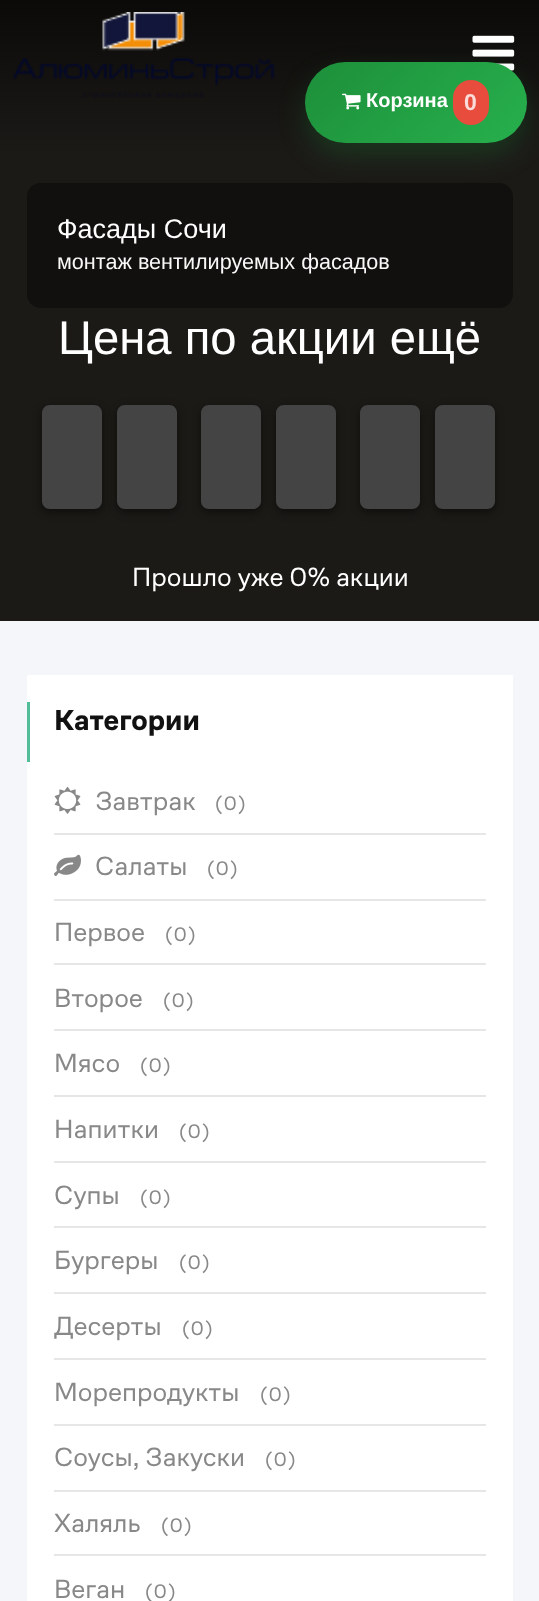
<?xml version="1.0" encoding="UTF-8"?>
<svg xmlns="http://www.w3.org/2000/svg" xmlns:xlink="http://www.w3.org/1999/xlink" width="539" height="1601">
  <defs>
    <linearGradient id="g1" gradientUnits="userSpaceOnUse" x1="270" y1="0" x2="270" y2="156"><stop offset="0" stop-color="#0b0a09" /><stop offset="1" stop-color="#1c1a17" /></linearGradient>
    <linearGradient id="g2" gradientUnits="userSpaceOnUse" x1="340" y1="26" x2="491" y2="178"><stop offset="0" stop-color="#1d8f3a" /><stop offset="1" stop-color="#27b04d" /></linearGradient>
  </defs>
  <rect width="100%" height="100%" fill="#f5f6fa" />
  <rect y="156" width="539" height="465" fill="#1c1a17" />
  <rect width="539" height="156" fill="url(#g1)" />
  <image x="13" y="12" width="262" height="86" xlink:href="image1.png" />
  <image x="472" y="35" width="43" height="36" xlink:href="image2.png" />
  <rect x="305" y="74" width="222" height="81" rx="40.5" fill="#1d8f3a" fill-opacity="0.25" filter="blur(13.5px)" />
  <rect x="305" y="62" width="222" height="81" rx="40.5" fill="url(#g2)" />
  <image x="342" y="93" width="19" height="17" xlink:href="image3.png" />
  <rect x="453" y="80" width="36" height="45" rx="18" fill="#e74c3c" />
  <rect x="27" y="183" width="486" height="125" rx="14" fill="#11100e" />
  <rect x="42" y="408" width="60" height="104" rx="8" fill="#000000" fill-opacity="0.5" filter="blur(4px)" />
  <path d="M 50 405 h 44 c 4.5 0 8 3.5 8 8 v 43 h -60 v -43 c 0 -4.5 3.5 -8 8 -8 z" fill="#444444" />
  <path d="M 42 456 h 60 v 45 c 0 4.5 -3.5 8 -8 8 h -44 c -4.5 0 -8 -3.5 -8 -8 z" fill="#444444" />
  <rect x="117" y="408" width="60" height="104" rx="8" fill="#000000" fill-opacity="0.5" filter="blur(4px)" />
  <path d="M 125 405 h 44 c 4.5 0 8 3.5 8 8 v 43 h -60 v -43 c 0 -4.5 3.5 -8 8 -8 z" fill="#444444" />
  <path d="M 117 456 h 60 v 45 c 0 4.5 -3.5 8 -8 8 h -44 c -4.5 0 -8 -3.5 -8 -8 z" fill="#444444" />
  <rect x="201" y="408" width="60" height="104" rx="8" fill="#000000" fill-opacity="0.5" filter="blur(4px)" />
  <path d="M 209 405 h 44 c 4.5 0 8 3.5 8 8 v 43 h -60 v -43 c 0 -4.5 3.5 -8 8 -8 z" fill="#444444" />
  <path d="M 201 456 h 60 v 45 c 0 4.5 -3.5 8 -8 8 h -44 c -4.5 0 -8 -3.5 -8 -8 z" fill="#444444" />
  <rect x="276" y="408" width="60" height="104" rx="8" fill="#000000" fill-opacity="0.5" filter="blur(4px)" />
  <path d="M 284 405 h 44 c 4.5 0 8 3.5 8 8 v 43 h -60 v -43 c 0 -4.5 3.5 -8 8 -8 z" fill="#444444" />
  <path d="M 276 456 h 60 v 45 c 0 4.5 -3.5 8 -8 8 h -44 c -4.5 0 -8 -3.5 -8 -8 z" fill="#444444" />
  <rect x="360" y="408" width="60" height="104" rx="8" fill="#000000" fill-opacity="0.5" filter="blur(4px)" />
  <path d="M 368 405 h 44 c 4.5 0 8 3.5 8 8 v 43 h -60 v -43 c 0 -4.5 3.5 -8 8 -8 z" fill="#444444" />
  <path d="M 360 456 h 60 v 45 c 0 4.5 -3.5 8 -8 8 h -44 c -4.5 0 -8 -3.5 -8 -8 z" fill="#444444" />
  <rect x="435" y="408" width="60" height="104" rx="8" fill="#000000" fill-opacity="0.5" filter="blur(4px)" />
  <path d="M 443 405 h 44 c 4.5 0 8 3.5 8 8 v 43 h -60 v -43 c 0 -4.5 3.5 -8 8 -8 z" fill="#444444" />
  <path d="M 435 456 h 60 v 45 c 0 4.5 -3.5 8 -8 8 h -44 c -4.5 0 -8 -3.5 -8 -8 z" fill="#444444" />
  <rect x="27" y="675" width="486" height="926" fill="#ffffff" />
  <rect x="27" y="702" width="3" height="60" fill="#53bd99" />
  <rect x="54" y="833" width="432" height="2" fill="#e6e6e6" />
  <image x="54" y="786" width="27" height="28" xlink:href="image4.png" />
  <rect x="54" y="899" width="432" height="2" fill="#e6e6e6" />
  <image x="54" y="854" width="27" height="22" xlink:href="image5.png" />
  <rect x="54" y="963" width="432" height="2" fill="#e6e6e6" />
  <rect x="54" y="1029" width="432" height="2" fill="#e6e6e6" />
  <rect x="54" y="1095" width="432" height="2" fill="#e6e6e6" />
  <rect x="54" y="1161" width="432" height="2" fill="#e6e6e6" />
  <rect x="54" y="1226" width="432" height="2" fill="#e6e6e6" />
  <rect x="54" y="1292" width="432" height="2" fill="#e6e6e6" />
  <rect x="54" y="1358" width="432" height="2" fill="#e6e6e6" />
  <rect x="54" y="1424" width="432" height="2" fill="#e6e6e6" />
  <rect x="54" y="1490" width="432" height="2" fill="#e6e6e6" />
  <rect x="54" y="1554" width="432" height="2" fill="#e6e6e6" />
  <text x="366" y="107" style="font-family: Liberation Sans; font-size: 20px; font-weight: bold; fill: #ffffff">Корзина</text>
  <text x="464" y="110" style="font-family: Liberation Sans; font-size: 23px; font-weight: bold; fill: #fadbd8">0</text>
  <text x="57" y="238" style="font-family: Liberation Sans; font-size: 27px; fill: #ffffff">Фасады Сочи</text>
  <text x="57" y="269" style="font-family: Liberation Sans; font-size: 21.6px; fill: #f8f8f8">монтаж вентилируемых фасадов</text>
  <text x="58" y="354" style="font-family: Liberation Sans; font-size: 47.25px; fill: #ffffff">Цена по акции ещё</text>
  <text x="132" y="586" style="font-family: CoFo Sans; font-size: 27px; fill: #ffffff">Прошло уже 0% акции</text>
  <text x="54" y="730" style="font-family: CoFo Sans; font-size: 29.5px; font-weight: bold; fill: #111111">Категории</text>
  <text x="95" y="810" style="font-family: CoFo Sans; font-size: 27px; fill: #888888">Завтрак</text>
  <text x="215" y="810" style="font-family: CoFo Sans; font-size: 20px; fill: #888888">(0)</text>
  <text x="95" y="875" style="font-family: CoFo Sans; font-size: 27px; fill: #888888">Салаты</text>
  <text x="207" y="875" style="font-family: CoFo Sans; font-size: 20px; fill: #888888">(0)</text>
  <text x="54" y="941" style="font-family: CoFo Sans; font-size: 27px; fill: #888888">Первое</text>
  <text x="165" y="941" style="font-family: CoFo Sans; font-size: 20px; fill: #888888">(0)</text>
  <text x="54" y="1007" style="font-family: CoFo Sans; font-size: 27px; fill: #888888">Второе</text>
  <text x="163" y="1007" style="font-family: CoFo Sans; font-size: 20px; fill: #888888">(0)</text>
  <text x="54" y="1072" style="font-family: CoFo Sans; font-size: 27px; fill: #888888">Мясо</text>
  <text x="140" y="1072" style="font-family: CoFo Sans; font-size: 20px; fill: #888888">(0)</text>
  <text x="54" y="1138" style="font-family: CoFo Sans; font-size: 27px; fill: #888888">Напитки</text>
  <text x="179" y="1138" style="font-family: CoFo Sans; font-size: 20px; fill: #888888">(0)</text>
  <text x="54" y="1204" style="font-family: CoFo Sans; font-size: 27px; fill: #888888">Супы</text>
  <text x="140" y="1204" style="font-family: CoFo Sans; font-size: 20px; fill: #888888">(0)</text>
  <text x="54" y="1269" style="font-family: CoFo Sans; font-size: 27px; fill: #888888">Бургеры</text>
  <text x="179" y="1269" style="font-family: CoFo Sans; font-size: 20px; fill: #888888">(0)</text>
  <text x="54" y="1335" style="font-family: CoFo Sans; font-size: 27px; fill: #888888">Десерты</text>
  <text x="182" y="1335" style="font-family: CoFo Sans; font-size: 20px; fill: #888888">(0)</text>
  <text x="54" y="1401" style="font-family: CoFo Sans; font-size: 27px; fill: #888888">Морепродукты</text>
  <text x="260" y="1401" style="font-family: CoFo Sans; font-size: 20px; fill: #888888">(0)</text>
  <text x="54" y="1466" style="font-family: CoFo Sans; font-size: 27px; fill: #888888">Соусы, Закуски</text>
  <text x="265" y="1466" style="font-family: CoFo Sans; font-size: 20px; fill: #888888">(0)</text>
  <text x="54" y="1532" style="font-family: CoFo Sans; font-size: 27px; fill: #888888">Халяль</text>
  <text x="161" y="1532" style="font-family: CoFo Sans; font-size: 20px; fill: #888888">(0)</text>
  <text x="54" y="1598" style="font-family: CoFo Sans; font-size: 27px; fill: #888888">Веган</text>
  <text x="145" y="1598" style="font-family: CoFo Sans; font-size: 20px; fill: #888888">(0)</text>
</svg>
